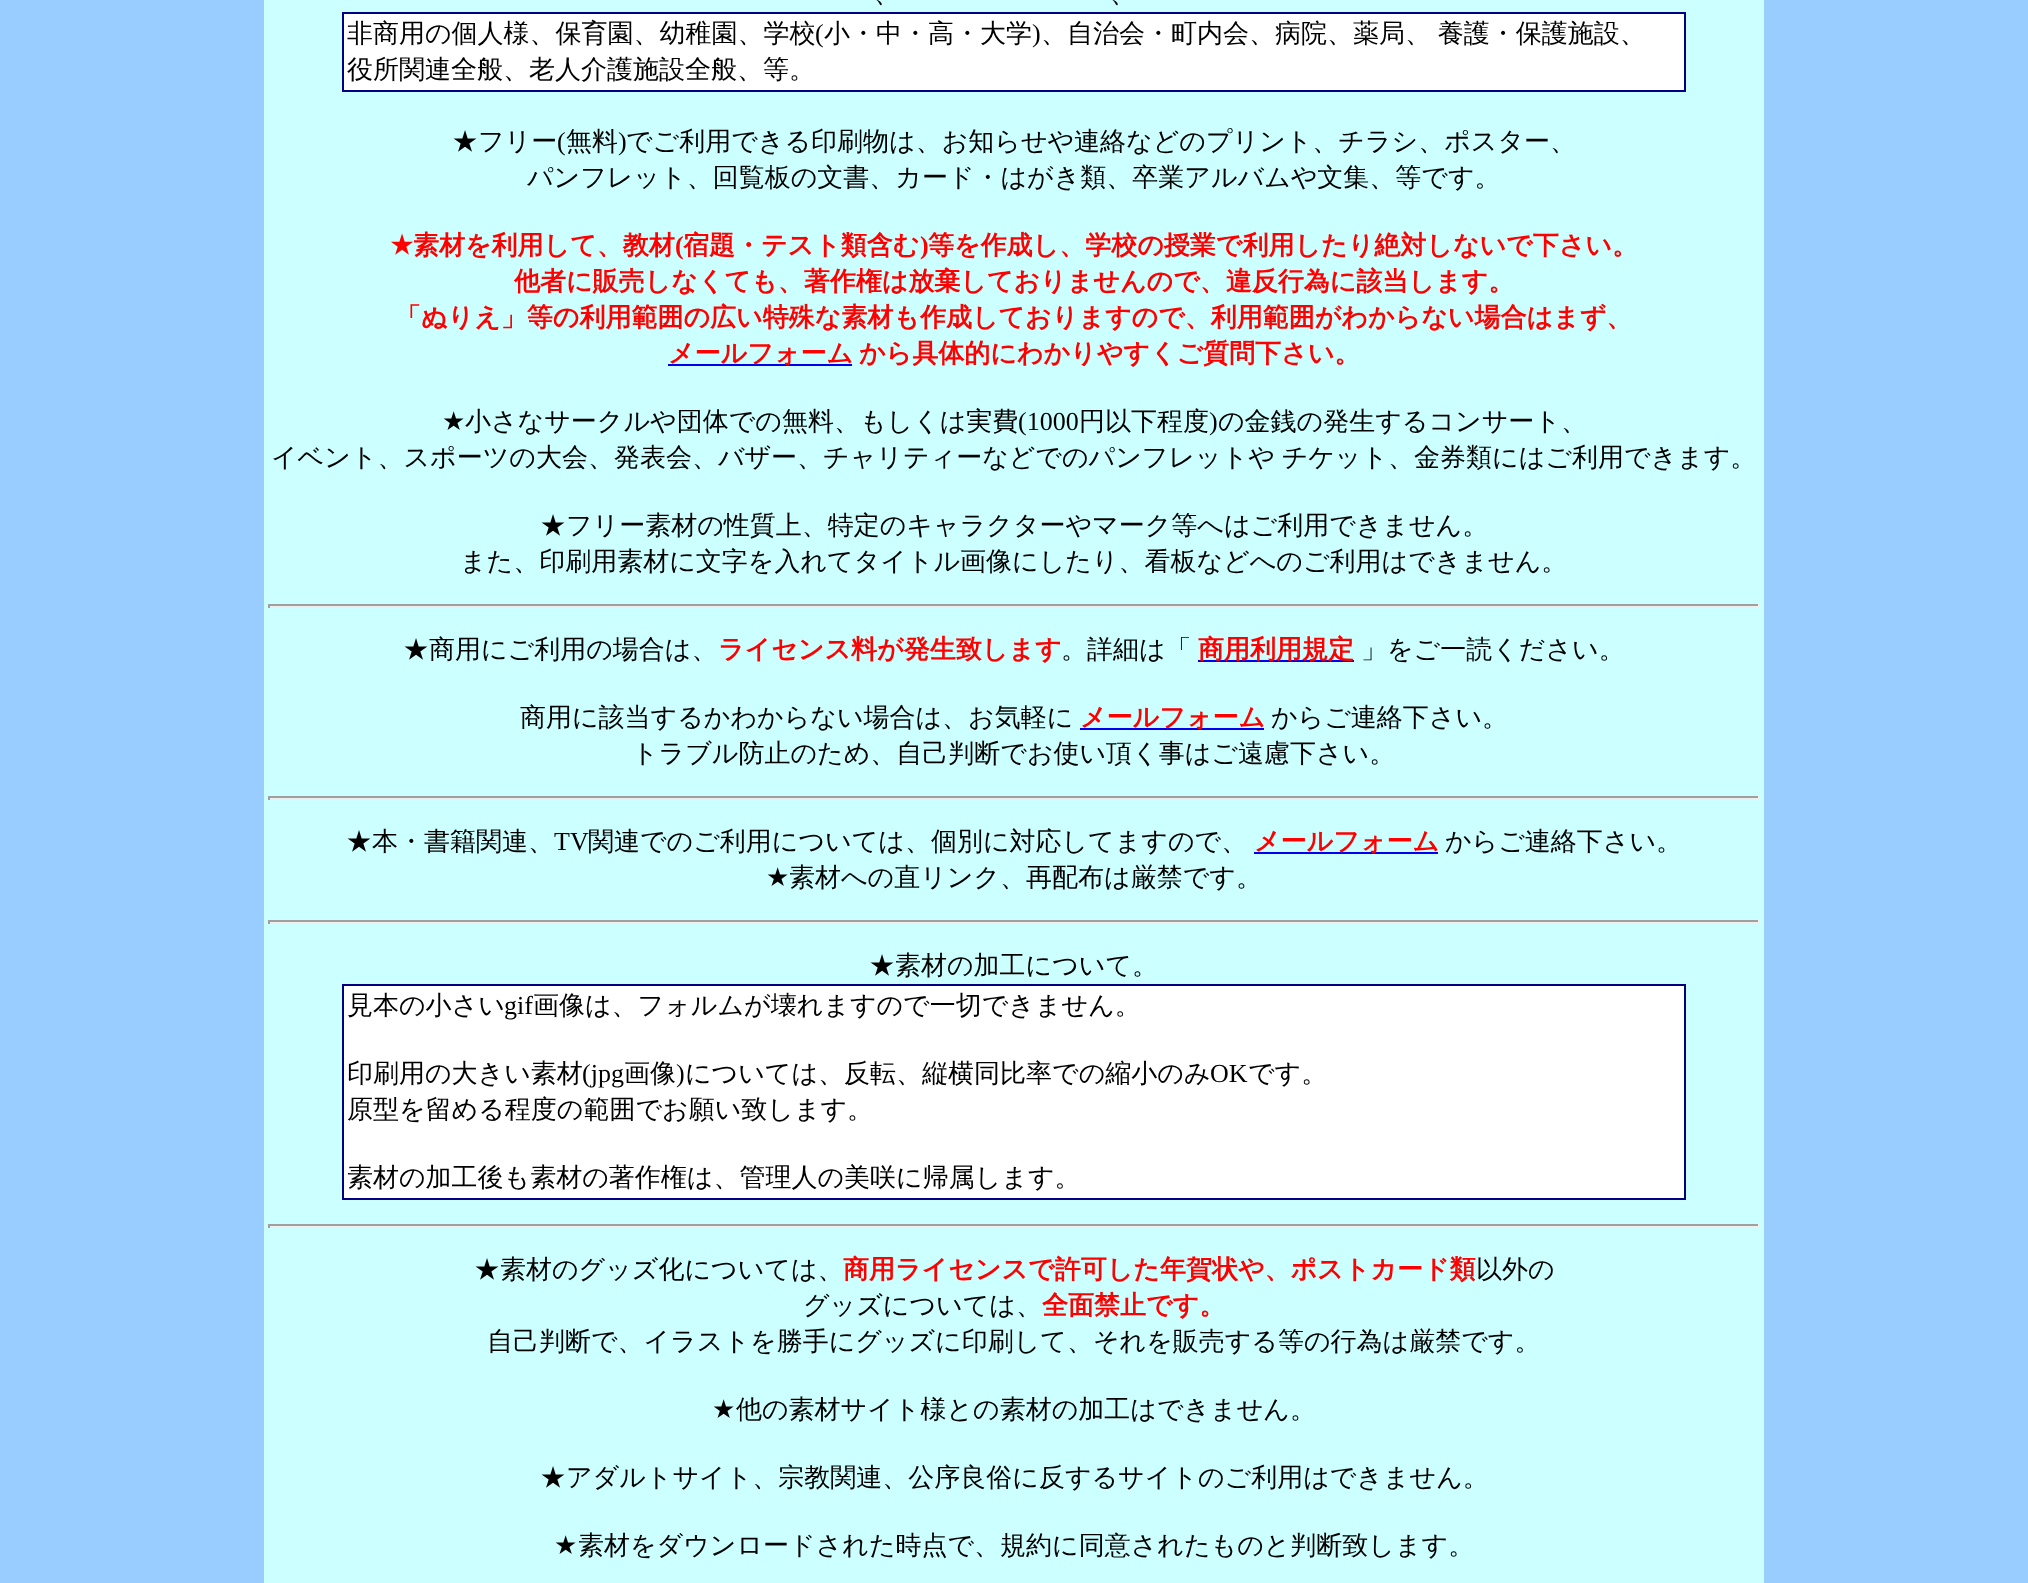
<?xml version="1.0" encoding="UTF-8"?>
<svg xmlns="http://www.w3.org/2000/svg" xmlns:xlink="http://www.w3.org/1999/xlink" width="2028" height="1583">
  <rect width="100%" height="100%" fill="#99ccff" />
  <rect x="264" width="1500" height="1583" fill="#ccffff" />
  <rect x="342" y="12" width="1344" height="2" fill="#000080" />
  <rect x="1684" y="12" width="2" height="80" fill="#000080" />
  <rect x="342" y="90" width="1344" height="2" fill="#000080" />
  <rect x="342" y="12" width="2" height="80" fill="#000080" />
  <rect x="344" y="14" width="1340" height="76" fill="#ffffff" />
  <rect x="668" y="364" width="184" height="2" fill="#0000ee" />
  <rect x="268" y="604" width="1492" height="2" fill="#9f9f9f" />
  <rect x="1758" y="604" width="2" height="4" fill="#eeeeee" />
  <rect x="268" y="606" width="1492" height="2" fill="#eeeeee" />
  <rect x="268" y="604" width="2" height="4" fill="#9f9f9f" />
  <rect x="1198" y="660" width="156" height="2" fill="#0000ee" />
  <rect x="1080" y="728" width="184" height="2" fill="#0000ee" />
  <rect x="268" y="796" width="1492" height="2" fill="#9f9f9f" />
  <rect x="1758" y="796" width="2" height="4" fill="#eeeeee" />
  <rect x="268" y="798" width="1492" height="2" fill="#eeeeee" />
  <rect x="268" y="796" width="2" height="4" fill="#9f9f9f" />
  <rect x="1254" y="852" width="184" height="2" fill="#0000ee" />
  <rect x="268" y="920" width="1492" height="2" fill="#9f9f9f" />
  <rect x="1758" y="920" width="2" height="4" fill="#eeeeee" />
  <rect x="268" y="922" width="1492" height="2" fill="#eeeeee" />
  <rect x="268" y="920" width="2" height="4" fill="#9f9f9f" />
  <rect x="342" y="984" width="1344" height="2" fill="#000080" />
  <rect x="1684" y="984" width="2" height="216" fill="#000080" />
  <rect x="342" y="1198" width="1344" height="2" fill="#000080" />
  <rect x="342" y="984" width="2" height="216" fill="#000080" />
  <rect x="344" y="986" width="1340" height="212" fill="#ffffff" />
  <rect x="268" y="1224" width="1492" height="2" fill="#9f9f9f" />
  <rect x="1758" y="1224" width="2" height="4" fill="#eeeeee" />
  <rect x="268" y="1226" width="1492" height="2" fill="#eeeeee" />
  <rect x="268" y="1224" width="2" height="4" fill="#9f9f9f" />
  <text x="874" y="2" style="font-family: WenQuanYi Zen Hei; font-size: 26px; font-weight: 500; fill: #000000">、</text>
  <text x="1110" y="2" style="font-family: WenQuanYi Zen Hei; font-size: 26px; font-weight: 500; fill: #000000">、</text>
  <text x="347" y="42" style="font-family: WenQuanYi Zen Hei; font-size: 26px; font-weight: 500; fill: #000000">非商用の個人様、保育園、幼稚園、学校</text>
  <text x="815" y="42" style="font-family: Liberation Serif; font-size: 26px; fill: #000000">(</text>
  <text x="824" y="42" style="font-family: WenQuanYi Zen Hei; font-size: 26px; font-weight: 500; fill: #000000">小・中・高・大学</text>
  <text x="1032" y="42" style="font-family: Liberation Serif; font-size: 26px; fill: #000000">)</text>
  <text x="1041" y="42" word-spacing="-1" style="font-family: WenQuanYi Zen Hei; font-size: 26px; font-weight: 500; fill: #000000">、自治会・町内会、病院、薬局、 養護・保護施設、</text>
  <text x="347" y="78" style="font-family: WenQuanYi Zen Hei; font-size: 26px; font-weight: 500; fill: #000000">役所関連全般、老人介護施設全般、等。</text>
  <text x="452" y="150" style="font-family: WenQuanYi Zen Hei; font-size: 26px; font-weight: 500; fill: #000000">★フリー</text>
  <text x="557" y="150" style="font-family: Liberation Serif; font-size: 26px; fill: #000000">(</text>
  <text x="566" y="150" style="font-family: WenQuanYi Zen Hei; font-size: 26px; font-weight: 500; fill: #000000">無料</text>
  <text x="618" y="150" style="font-family: Liberation Serif; font-size: 26px; fill: #000000">)</text>
  <text x="626" y="150" style="font-family: WenQuanYi Zen Hei; font-size: 26px; font-weight: 500; fill: #000000">でご利用できる印刷物は、お知らせや連絡などのプリント、チラシ、ポスター、</text>
  <text x="527" y="186" style="font-family: WenQuanYi Zen Hei; font-size: 26px; font-weight: 500; fill: #000000">パンフレット、回覧板の文書、カード・はがき類、卒業アルバムや文集、等です。</text>
  <text x="390" y="254" style="font-family: DejaVu Sans; font-size: 26px; font-weight: bold; fill: #ff0000">★</text>
  <text x="413" y="254" style="font-family: WenQuanYi Zen Hei; font-size: 26px; font-weight: bold; fill: #ff0000">素材を利用して、教材</text>
  <text x="675" y="254" style="font-family: Liberation Serif; font-size: 26px; font-weight: bold; fill: #ff0000">(</text>
  <text x="683" y="254" style="font-family: WenQuanYi Zen Hei; font-size: 26px; font-weight: bold; fill: #ff0000">宿題・テスト類含む</text>
  <text x="920" y="254" style="font-family: Liberation Serif; font-size: 26px; font-weight: bold; fill: #ff0000">)</text>
  <text x="928" y="254" style="font-family: WenQuanYi Zen Hei; font-size: 26px; font-weight: bold; fill: #ff0000">等を作成し、学校の授業で利用したり絶対しないで下さい。</text>
  <text x="514" y="290" style="font-family: WenQuanYi Zen Hei; font-size: 26px; font-weight: bold; fill: #ff0000">他者に販売しなくても、著作権は放棄しておりませんので、違反行為に該当します。</text>
  <text x="395" y="326" style="font-family: WenQuanYi Zen Hei; font-size: 26px; font-weight: bold; fill: #ff0000">「ぬりえ」等の利用範囲の広い特殊な素材も作成しておりますので、利用範囲がわからない場合はまず、</text>
  <text x="668" y="362" style="font-family: WenQuanYi Zen Hei; font-size: 26px; font-weight: bold; fill: #ff0000">メールフォーム</text>
  <text x="859" y="362" style="font-family: WenQuanYi Zen Hei; font-size: 26px; font-weight: bold; fill: #ff0000">から具体的にわかりやすくご質問下さい。</text>
  <text x="442" y="430" style="font-family: DejaVu Sans; font-size: 26px; fill: #000000">★</text>
  <text x="465" y="430" style="font-family: WenQuanYi Zen Hei; font-size: 26px; font-weight: 500; fill: #000000">小さなサークルや団体での無料、もしくは実費</text>
  <text x="1018" y="430" style="font-family: Liberation Serif; font-size: 26px; fill: #000000">(1000</text>
  <text x="1079" y="430" style="font-family: WenQuanYi Zen Hei; font-size: 26px; font-weight: 500; fill: #000000">円以下程度</text>
  <text x="1209" y="430" style="font-family: Liberation Serif; font-size: 26px; fill: #000000">)</text>
  <text x="1218" y="430" style="font-family: WenQuanYi Zen Hei; font-size: 26px; font-weight: 500; fill: #000000">の金銭の発生するコンサート、</text>
  <text x="271" y="466" word-spacing="-1" style="font-family: WenQuanYi Zen Hei; font-size: 26px; font-weight: 500; fill: #000000">イベント、スポーツの大会、発表会、バザー、チャリティーなどでのパンフレットや チケット、金券類にはご利用できます。</text>
  <text x="540" y="534" style="font-family: WenQuanYi Zen Hei; font-size: 26px; font-weight: 500; fill: #000000">★フリー素材の性質上、特定のキャラクターやマーク等へはご利用できません。</text>
  <text x="460" y="570" style="font-family: WenQuanYi Zen Hei; font-size: 26px; font-weight: 500; fill: #000000">また、印刷用素材に文字を入れてタイトル画像にしたり、看板などへのご利用はできません。</text>
  <text x="403" y="658" style="font-family: WenQuanYi Zen Hei; font-size: 26px; font-weight: 500; fill: #000000">★商用にご利用の場合は、</text>
  <text x="718" y="658" style="font-family: WenQuanYi Zen Hei; font-size: 26px; font-weight: bold; fill: #ff0000">ライセンス料が発生致します</text>
  <text x="1061" y="658" style="font-family: WenQuanYi Zen Hei; font-size: 26px; font-weight: 500; fill: #000000">。詳細は「</text>
  <text x="1198" y="658" style="font-family: WenQuanYi Zen Hei; font-size: 26px; font-weight: bold; fill: #ff0000">商用利用規定</text>
  <text x="1361" y="658" style="font-family: WenQuanYi Zen Hei; font-size: 26px; font-weight: 500; fill: #000000">」をご一読ください。</text>
  <text x="520" y="726" style="font-family: WenQuanYi Zen Hei; font-size: 26px; font-weight: 500; fill: #000000">商用に該当するかわからない場合は、お気軽に</text>
  <text x="1080" y="726" style="font-family: WenQuanYi Zen Hei; font-size: 26px; font-weight: bold; fill: #ff0000">メールフォーム</text>
  <text x="1271" y="726" style="font-family: WenQuanYi Zen Hei; font-size: 26px; font-weight: 500; fill: #000000">からご連絡下さい。</text>
  <text x="632" y="762" style="font-family: WenQuanYi Zen Hei; font-size: 26px; font-weight: 500; fill: #000000">トラブル防止のため、自己判断でお使い頂く事はご遠慮下さい。</text>
  <text x="346" y="850" style="font-family: WenQuanYi Zen Hei; font-size: 26px; font-weight: 500; fill: #000000">★本・書籍関連、</text>
  <text x="554" y="850" style="font-family: Liberation Serif; font-size: 26px; fill: #000000">TV</text>
  <text x="588" y="850" style="font-family: WenQuanYi Zen Hei; font-size: 26px; font-weight: 500; fill: #000000">関連でのご利用については、個別に対応してますので、</text>
  <text x="1254" y="850" style="font-family: WenQuanYi Zen Hei; font-size: 26px; font-weight: bold; fill: #ff0000">メールフォーム</text>
  <text x="1445" y="850" style="font-family: WenQuanYi Zen Hei; font-size: 26px; font-weight: 500; fill: #000000">からご連絡下さい。</text>
  <text x="766" y="886" style="font-family: DejaVu Sans; font-size: 26px; fill: #000000">★</text>
  <text x="789" y="886" style="font-family: WenQuanYi Zen Hei; font-size: 26px; font-weight: 500; fill: #000000">素材への直リンク、再配布は厳禁です。</text>
  <text x="869" y="974" style="font-family: WenQuanYi Zen Hei; font-size: 26px; font-weight: 500; fill: #000000">★素材の加工について。</text>
  <text x="347" y="1014" style="font-family: WenQuanYi Zen Hei; font-size: 26px; font-weight: 500; fill: #000000">見本の小さい</text>
  <text x="504" y="1014" style="font-family: Liberation Serif; font-size: 26px; fill: #000000">gif</text>
  <text x="533" y="1014" style="font-family: WenQuanYi Zen Hei; font-size: 26px; font-weight: 500; fill: #000000">画像は、フォルムが壊れますので一切できません。</text>
  <text x="347" y="1082" style="font-family: WenQuanYi Zen Hei; font-size: 26px; font-weight: 500; fill: #000000">印刷用の大きい素材</text>
  <text x="582" y="1082" style="font-family: Liberation Serif; font-size: 26px; fill: #000000">(jpg</text>
  <text x="624" y="1082" style="font-family: WenQuanYi Zen Hei; font-size: 26px; font-weight: 500; fill: #000000">画像</text>
  <text x="676" y="1082" style="font-family: Liberation Serif; font-size: 26px; fill: #000000">)</text>
  <text x="685" y="1082" style="font-family: WenQuanYi Zen Hei; font-size: 26px; font-weight: 500; fill: #000000">については、反転、縦横同比率での縮小のみ</text>
  <text x="1210" y="1082" style="font-family: Liberation Serif; font-size: 26px; fill: #000000">OK</text>
  <text x="1248" y="1082" style="font-family: WenQuanYi Zen Hei; font-size: 26px; font-weight: 500; fill: #000000">です。</text>
  <text x="347" y="1118" style="font-family: WenQuanYi Zen Hei; font-size: 26px; font-weight: 500; fill: #000000">原型を留める程度の範囲でお願い致します。</text>
  <text x="347" y="1186" style="font-family: WenQuanYi Zen Hei; font-size: 26px; font-weight: 500; fill: #000000">素材の加工後も素材の著作権は、管理人の美咲に帰属します。</text>
  <text x="474" y="1278" style="font-family: WenQuanYi Zen Hei; font-size: 26px; font-weight: 500; fill: #000000">★素材のグッズ化については、</text>
  <text x="843" y="1278" style="font-family: WenQuanYi Zen Hei; font-size: 26px; font-weight: bold; fill: #ff0000">商用ライセンスで許可した年賀状や、ポストカード類</text>
  <text x="1476" y="1278" style="font-family: WenQuanYi Zen Hei; font-size: 26px; font-weight: 500; fill: #000000">以外の</text>
  <text x="803" y="1314" style="font-family: WenQuanYi Zen Hei; font-size: 26px; font-weight: 500; fill: #000000">グッズについては、</text>
  <text x="1042" y="1314" style="font-family: WenQuanYi Zen Hei; font-size: 26px; font-weight: bold; fill: #ff0000">全面禁止です。</text>
  <text x="487" y="1350" style="font-family: WenQuanYi Zen Hei; font-size: 26px; font-weight: 500; fill: #000000">自己判断で、イラストを勝手にグッズに印刷して、それを販売する等の行為は厳禁です。</text>
  <text x="712" y="1418" style="font-family: DejaVu Sans; font-size: 26px; fill: #000000">★</text>
  <text x="736" y="1418" style="font-family: WenQuanYi Zen Hei; font-size: 26px; font-weight: 500; fill: #000000">他の素材サイト様との素材の加工はできません。</text>
  <text x="540" y="1486" style="font-family: WenQuanYi Zen Hei; font-size: 26px; font-weight: 500; fill: #000000">★アダルトサイト、宗教関連、公序良俗に反するサイトのご利用はできません。</text>
  <text x="554" y="1554" style="font-family: DejaVu Sans; font-size: 26px; fill: #000000">★</text>
  <text x="578" y="1554" style="font-family: WenQuanYi Zen Hei; font-size: 26px; font-weight: 500; fill: #000000">素材をダウンロードされた時点で、規約に同意されたものと判断致します。</text>
</svg>
